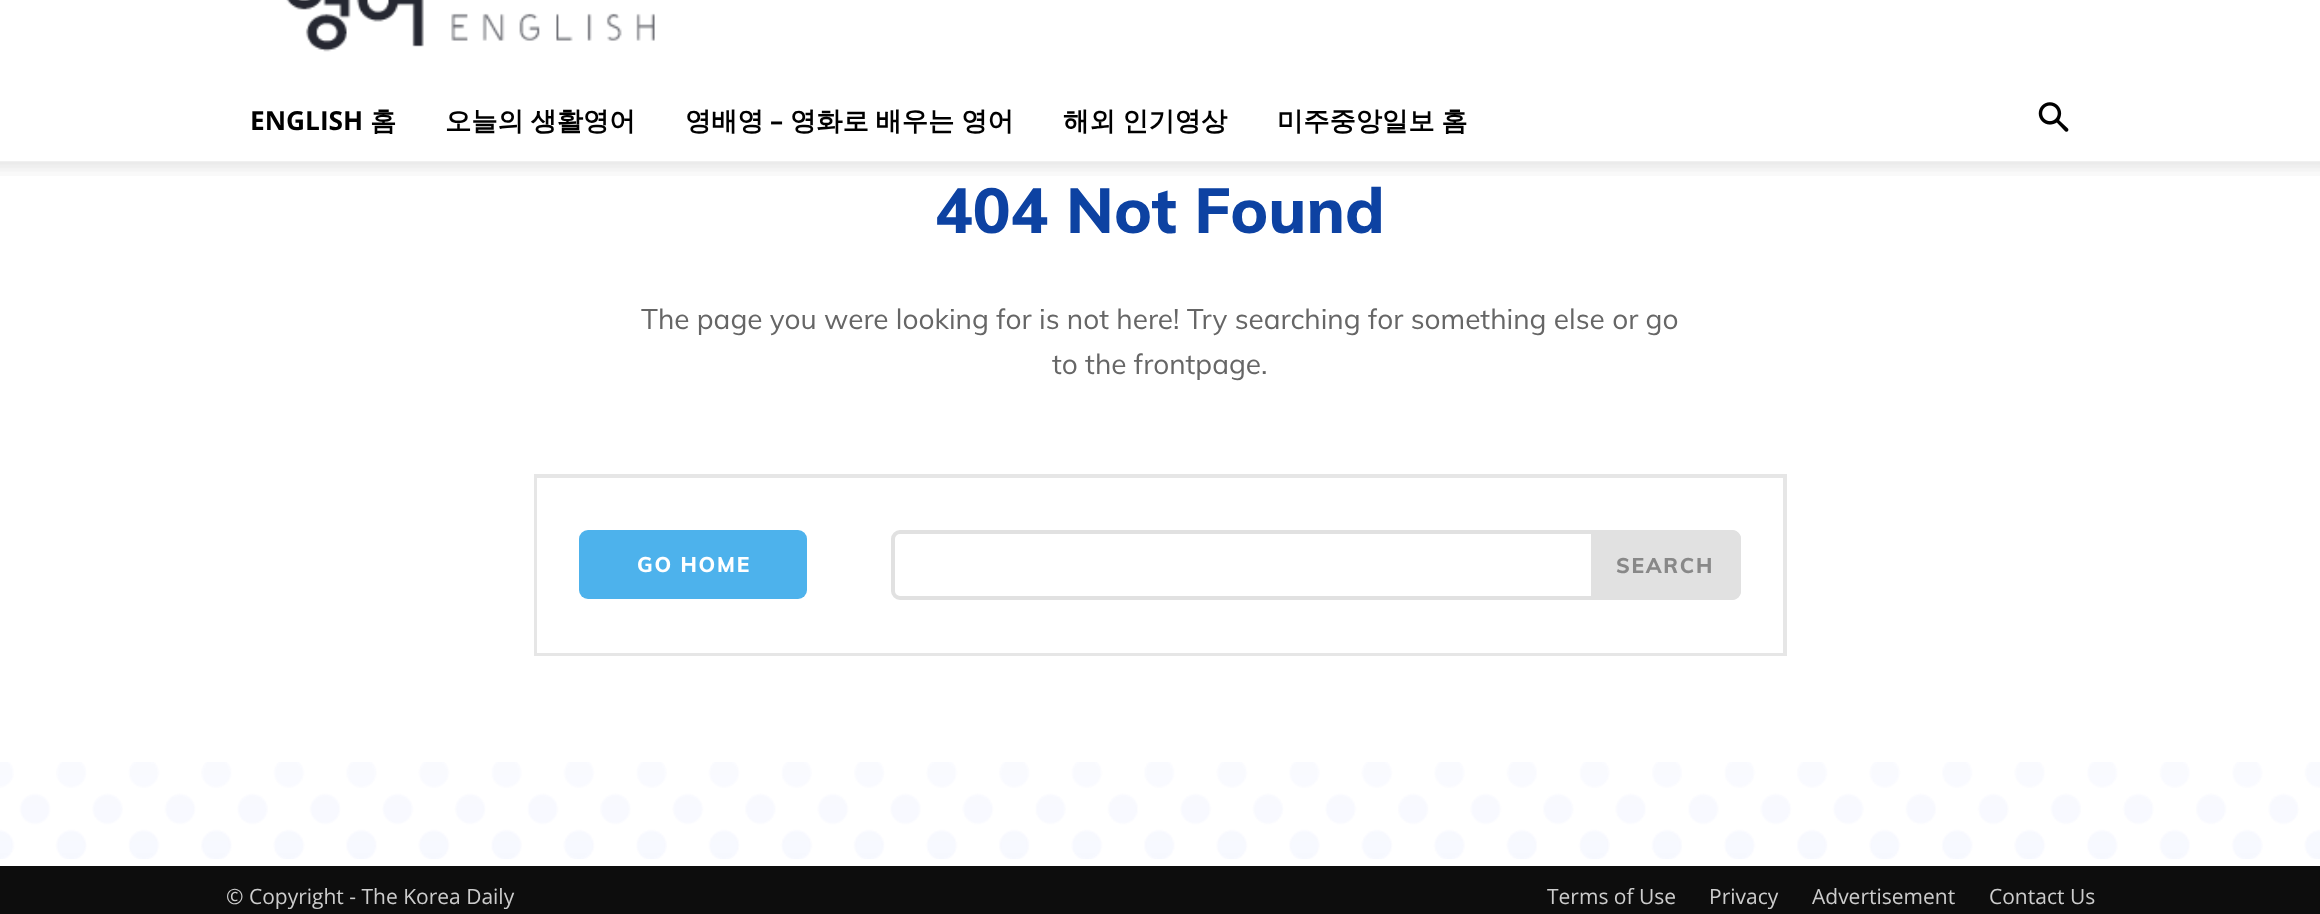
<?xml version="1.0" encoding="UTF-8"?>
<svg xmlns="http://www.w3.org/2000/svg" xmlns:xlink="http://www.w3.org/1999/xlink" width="2320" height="914">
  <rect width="100%" height="100%" fill="#ffffff" />
  <image x="286" y="0" width="369" height="52" xlink:href="image1.png" />
  <image x="2038" y="102" width="31" height="30" xlink:href="image2.png" />
  <image x="0" y="161" width="2320" height="15" xlink:href="image3.png" />
  <rect x="536" y="476" width="1249" height="178" fill="none" stroke="#e6e6e6" stroke-width="4" />
  <rect x="537" y="478" width="1246" height="175" fill="#ffffff" />
  <rect x="579" y="530" width="228" height="69" rx="9" fill="#4db2ec" />
  <rect x="893" y="532" width="846" height="66" rx="7" fill="none" stroke="#e1e1e1" stroke-width="4" />
  <path d="M 1591 530 h 141 c 5 0 9 4 9 9 v 52 c 0 5 -4 9 -9 9 h -141 z" fill="#e1e1e1" />
  <image x="0" y="762" width="2320" height="97" xlink:href="image4.png" />
  <rect y="866" width="2320" height="48" fill="#0d0d0d" />
  <text x="250" y="130" style="font-family: Open Sans; font-size: 26.25px; font-weight: bold; fill: #000000">ENGLISH</text>
  <text x="370" y="130" style="font-family: WenQuanYi Zen Hei; font-size: 26.25px; font-weight: bold; fill: #000000">홈</text>
  <text x="445" y="130" word-spacing="-1" style="font-family: WenQuanYi Zen Hei; font-size: 26.25px; font-weight: bold; fill: #000000">오늘의 생활영어</text>
  <text x="685" y="130" style="font-family: WenQuanYi Zen Hei; font-size: 26.25px; font-weight: bold; fill: #000000">영배영</text>
  <text x="770" y="130" style="font-family: Open Sans; font-size: 26.25px; font-weight: bold; fill: #000000">–</text>
  <text x="790" y="130" word-spacing="-1" style="font-family: WenQuanYi Zen Hei; font-size: 26.25px; font-weight: bold; fill: #000000">영화로 배우는 영어</text>
  <text x="1063" y="130" word-spacing="-1" style="font-family: WenQuanYi Zen Hei; font-size: 26.25px; font-weight: bold; fill: #000000">해외 인기영상</text>
  <text x="1277" y="130" word-spacing="-1" style="font-family: WenQuanYi Zen Hei; font-size: 26.25px; font-weight: bold; fill: #000000">미주중앙일보 홈</text>
  <text x="935" y="233" style="font-family: Muli; font-size: 63px; font-weight: 800; fill: #0d42a2">404 Not Found</text>
  <text x="641" y="329" style="font-family: Muli; font-size: 28px; fill: #666666">The page you were looking for is not here! Try searching for something else or go</text>
  <text x="1052" y="374" style="font-family: Muli; font-size: 28px; fill: #666666">to the frontpage.</text>
  <text x="637" y="572" style="font-family: Muli; font-size: 21px; font-weight: 800; letter-spacing: 1.75px; fill: #ffffff">GO HOME</text>
  <text x="1616" y="573" style="font-family: Muli; font-size: 21px; font-weight: 800; letter-spacing: 1.75px; fill: #888888">SEARCH</text>
  <text x="226" y="904" style="font-family: Open Sans; font-size: 21px; fill: #cccccc">© Copyright - The Korea Daily</text>
  <text x="1547" y="904" style="font-family: Open Sans; font-size: 21px; fill: #cccccc">Terms of Use</text>
  <text x="1709" y="904" style="font-family: Open Sans; font-size: 21px; fill: #cccccc">Privacy</text>
  <text x="1812" y="904" style="font-family: Open Sans; font-size: 21px; fill: #cccccc">Advertisement</text>
  <text x="1989" y="904" style="font-family: Open Sans; font-size: 21px; fill: #cccccc">Contact Us</text>
</svg>
